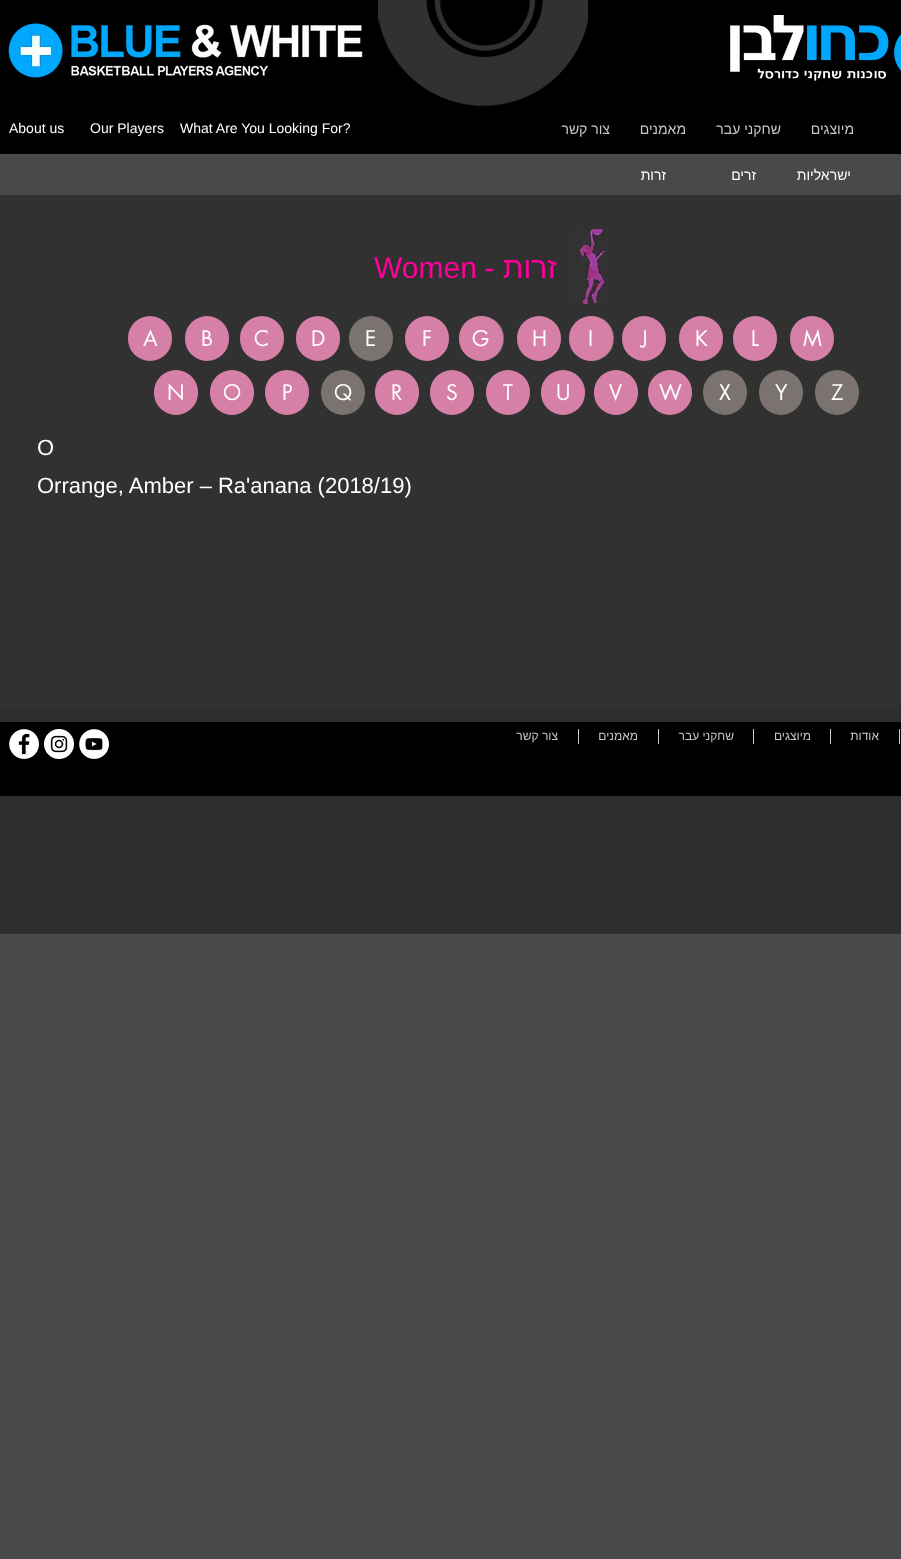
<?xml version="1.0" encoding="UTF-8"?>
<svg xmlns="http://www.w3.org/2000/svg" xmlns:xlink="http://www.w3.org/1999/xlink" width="901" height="1559">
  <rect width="100%" height="100%" fill="#494949" />
  <rect width="901" height="154" fill="#000000" />
  <image x="8" y="23" width="355" height="55" xlink:href="image1.png" />
  <image x="378" y="0" width="210" height="107" xlink:href="image2.png" />
  <image x="730" y="15" width="171" height="66" xlink:href="image3.png" />
  <rect y="195" width="901" height="512" fill="#313131" />
  <image x="573" y="229" width="37" height="75" xlink:href="image4.png" />
  <rect x="128" y="316" width="44" height="45" rx="22" fill="#d680a7" />
  <rect x="240" y="316" width="44" height="45" rx="22" fill="#d680a7" />
  <rect x="460" y="316" width="44" height="45" rx="22" fill="#7b736f" />
  <rect x="570" y="316" width="44" height="45" rx="22" fill="#7b736f" />
  <rect x="185" y="316" width="44" height="45" rx="22" fill="#d680a7" />
  <rect x="296" y="316" width="44" height="45" rx="22" fill="#d680a7" />
  <rect x="349" y="316" width="44" height="45" rx="22" fill="#7b736f" />
  <rect x="405" y="316" width="44" height="45" rx="22" fill="#d680a7" />
  <rect x="459" y="316" width="44" height="45" rx="22" fill="#d680a7" />
  <rect x="517" y="316" width="44" height="45" rx="22" fill="#d680a7" />
  <rect x="569" y="316" width="44" height="45" rx="22" fill="#d680a7" />
  <rect x="622" y="316" width="44" height="45" rx="22" fill="#d680a7" />
  <rect x="679" y="316" width="44" height="45" rx="22" fill="#d680a7" />
  <rect x="733" y="316" width="44" height="45" rx="22" fill="#d680a7" />
  <rect x="790" y="316" width="44" height="45" rx="22" fill="#d680a7" />
  <rect x="154" y="370" width="44" height="45" rx="22" fill="#d680a7" />
  <rect x="210" y="370" width="44" height="45" rx="22" fill="#d680a7" />
  <rect x="265" y="370" width="44" height="45" rx="22" fill="#d680a7" />
  <rect x="321" y="370" width="44" height="45" rx="22" fill="#7b736f" />
  <rect x="375" y="370" width="44" height="45" rx="22" fill="#d680a7" />
  <rect x="430" y="370" width="44" height="45" rx="22" fill="#d680a7" />
  <rect x="486" y="370" width="44" height="45" rx="22" fill="#d680a7" />
  <rect x="541" y="370" width="44" height="45" rx="22" fill="#d680a7" />
  <rect x="594" y="370" width="44" height="45" rx="22" fill="#d680a7" />
  <rect x="648" y="370" width="44" height="45" rx="22" fill="#d680a7" />
  <rect x="703" y="370" width="44" height="45" rx="22" fill="#7b736f" />
  <rect x="759" y="370" width="44" height="45" rx="22" fill="#7b736f" />
  <rect x="815" y="370" width="44" height="45" rx="22" fill="#7b736f" />
  <rect y="707" width="901" height="227" fill="#2f2e2e" />
  <rect y="722" width="901" height="74" fill="#000000" />
  <image x="9" y="729" width="30" height="30" xlink:href="image5.png" />
  <image x="44" y="729" width="30" height="30" xlink:href="image6.png" />
  <image x="79" y="729" width="30" height="30" xlink:href="image7.png" />
  <rect x="578" y="729" width="1" height="15" fill="#c7c7c7" />
  <rect x="658" y="729" width="1" height="15" fill="#c7c7c7" />
  <rect x="753" y="729" width="1" height="15" fill="#c7c7c7" />
  <rect x="830" y="729" width="1" height="15" fill="#c7c7c7" />
  <rect x="899" y="729" width="1" height="15" fill="#c7c7c7" />
  <text x="9" y="133" style="font-family: Liberation Sans; font-size: 14px; fill: #ffffff">About us</text>
  <text x="90" y="133" style="font-family: Liberation Sans; font-size: 14px; fill: #ffffff">Our Players</text>
  <text x="180" y="133" style="font-family: Liberation Sans; font-size: 14px; fill: #ffffff">What Are You Looking For?</text>
  <text x="610" y="134" style="font-family: Liberation Sans; font-size: 14px; direction: rtl; fill: #c7c7c7">צור קשר</text>
  <text x="686" y="134" style="font-family: Liberation Sans; font-size: 14px; direction: rtl; fill: #c7c7c7">מאמנים</text>
  <text x="781" y="134" style="font-family: Liberation Sans; font-size: 14px; direction: rtl; fill: #c7c7c7">שחקני עבר</text>
  <text x="854" y="134" style="font-family: Liberation Sans; font-size: 14px; direction: rtl; fill: #c7c7c7">מיוצגים</text>
  <text x="666" y="180" style="font-family: Liberation Sans; font-size: 14px; direction: rtl; fill: #ffffff">זרות</text>
  <text x="756" y="180" style="font-family: Liberation Sans; font-size: 14px; direction: rtl; fill: #ffffff">זרים</text>
  <text x="851" y="180" style="font-family: Liberation Sans; font-size: 14px; direction: rtl; fill: #ffffff">ישראליות</text>
  <text x="374" y="278" style="font-family: Liberation Sans; font-size: 30px; fill: #ff0099">Women</text>
  <text x="557" y="278" style="font-family: Liberation Sans; font-size: 30px; direction: rtl; fill: #ff0099">זרות -</text>
  <text x="143" y="346" style="font-family: futura; font-size: 21px; fill: #ffffff">A</text>
  <text x="254" y="346" style="font-family: futura; font-size: 21px; fill: #ffffff">C</text>
  <text x="201" y="346" style="font-family: futura; font-size: 21px; fill: #ffffff">B</text>
  <text x="311" y="346" style="font-family: futura; font-size: 21px; fill: #ffffff">D</text>
  <text x="365" y="346" style="font-family: futura; font-size: 21px; fill: #ffffff">E</text>
  <text x="422" y="346" style="font-family: futura; font-size: 21px; fill: #ffffff">F</text>
  <text x="472" y="346" style="font-family: futura; font-size: 21px; fill: #ffffff">G</text>
  <text x="532" y="346" style="font-family: futura; font-size: 21px; fill: #ffffff">H</text>
  <text x="588" y="346" style="font-family: futura; font-size: 21px; fill: #ffffff">I</text>
  <text x="641" y="346" style="font-family: futura; font-size: 21px; fill: #ffffff">J</text>
  <text x="695" y="346" style="font-family: futura; font-size: 21px; fill: #ffffff">K</text>
  <text x="751" y="346" style="font-family: futura; font-size: 21px; fill: #ffffff">L</text>
  <text x="803" y="346" style="font-family: futura; font-size: 21px; fill: #ffffff">M</text>
  <text x="167" y="400" style="font-family: futura; font-size: 21px; fill: #ffffff">N</text>
  <text x="223" y="400" style="font-family: futura; font-size: 21px; fill: #ffffff">O</text>
  <text x="282" y="400" style="font-family: futura; font-size: 21px; fill: #ffffff">P</text>
  <text x="334" y="400" style="font-family: futura; font-size: 21px; fill: #ffffff">Q</text>
  <text x="391" y="400" style="font-family: futura; font-size: 21px; fill: #ffffff">R</text>
  <text x="446" y="400" style="font-family: futura; font-size: 21px; fill: #ffffff">S</text>
  <text x="503" y="400" style="font-family: futura; font-size: 21px; fill: #ffffff">T</text>
  <text x="556" y="400" style="font-family: futura; font-size: 21px; fill: #ffffff">U</text>
  <text x="609" y="400" style="font-family: futura; font-size: 21px; fill: #ffffff">V</text>
  <text x="659" y="400" style="font-family: futura; font-size: 21px; fill: #ffffff">W</text>
  <text x="719" y="400" style="font-family: futura; font-size: 21px; fill: #ffffff">X</text>
  <text x="775" y="400" style="font-family: futura; font-size: 21px; fill: #ffffff">Y</text>
  <text x="831" y="400" style="font-family: futura; font-size: 21px; fill: #ffffff">Z</text>
  <text x="37" y="455" style="font-family: Liberation Sans; font-size: 22px; fill: #ffffff">O</text>
  <text x="37" y="493" style="font-family: Liberation Sans; font-size: 22px; fill: #ffffff">Orrange, Amber – Ra'anana (2018/19)</text>
  <text x="558" y="740" style="font-family: Liberation Sans; font-size: 12px; direction: rtl; fill: #c7c7c7">צור קשר</text>
  <text x="638" y="740" style="font-family: Liberation Sans; font-size: 12px; direction: rtl; fill: #c7c7c7">מאמנים</text>
  <text x="734" y="740" style="font-family: Liberation Sans; font-size: 12px; direction: rtl; fill: #c7c7c7">שחקני עבר</text>
  <text x="811" y="740" style="font-family: Liberation Sans; font-size: 12px; direction: rtl; fill: #c7c7c7">מיוצגים</text>
  <text x="879" y="740" style="font-family: Liberation Sans; font-size: 12px; direction: rtl; fill: #c7c7c7">אודות</text>
</svg>
